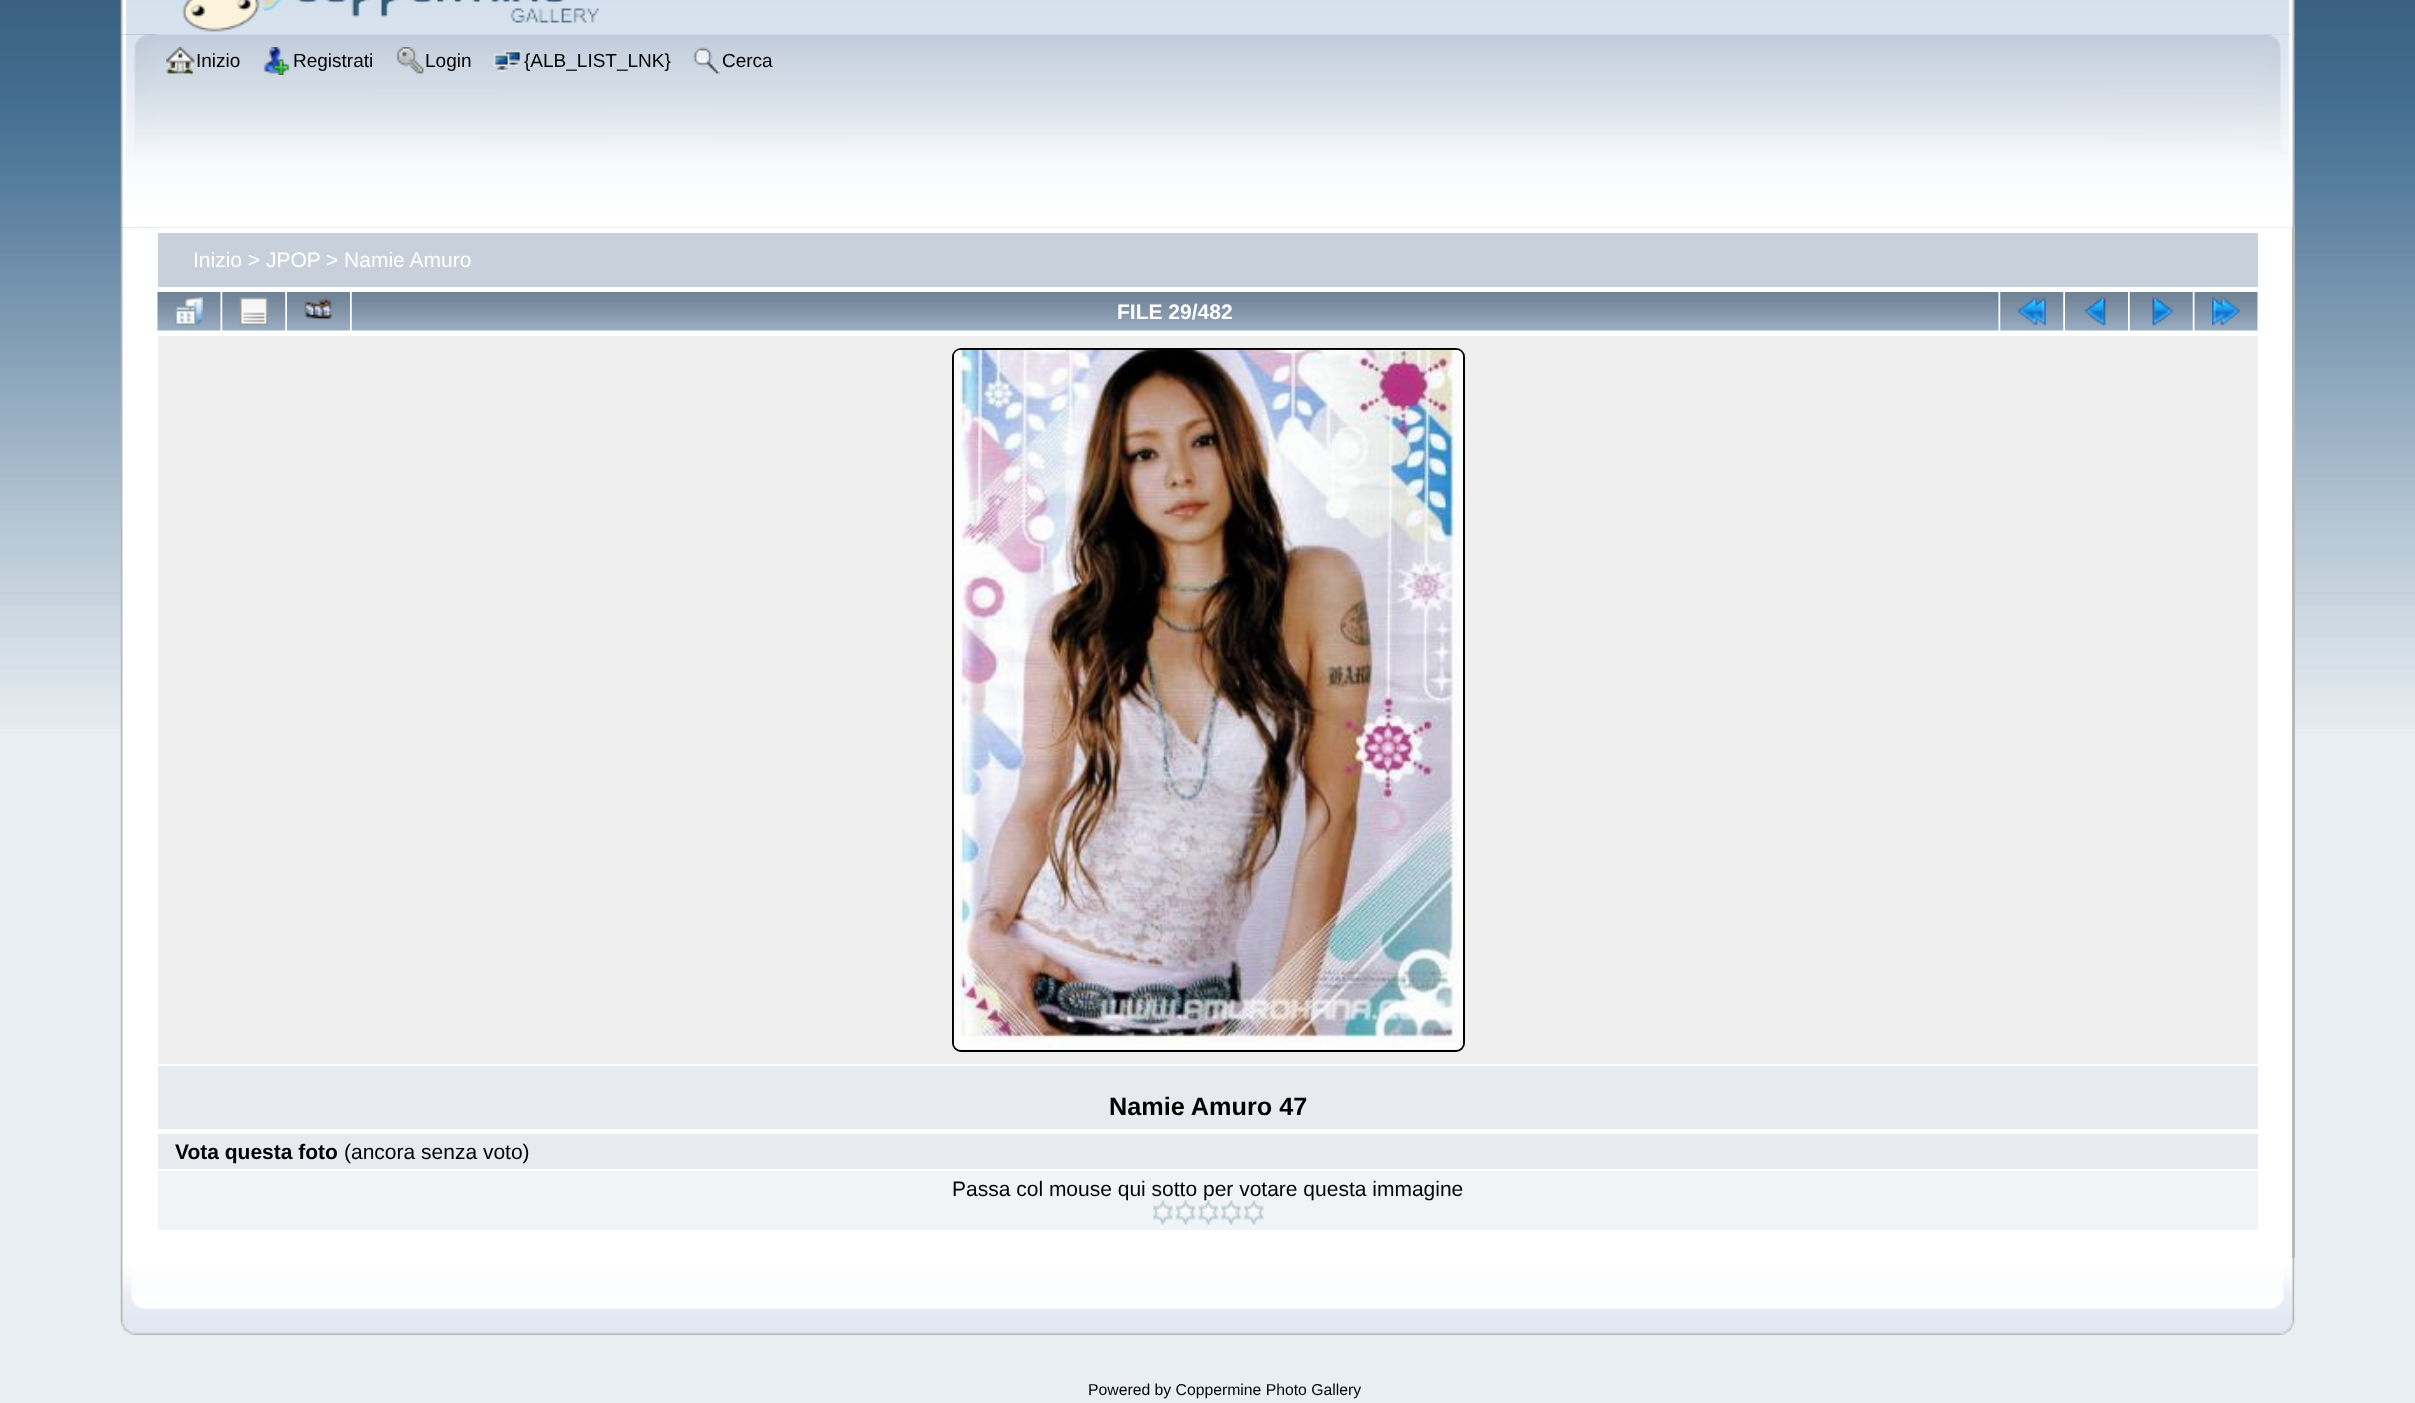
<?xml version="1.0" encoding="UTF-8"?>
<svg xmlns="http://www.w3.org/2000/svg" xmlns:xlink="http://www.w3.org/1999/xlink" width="2415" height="1403">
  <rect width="100%" height="100%" fill="#e9eef2" />
  <image x="0" y="0" width="2415" height="729" xlink:href="image1.png" />
  <image x="120" y="0" width="2175" height="35" xlink:href="image2.png" />
  <image x="156" y="0" width="2139" height="35" xlink:href="image3.png" />
  <image x="182" y="0" width="417" height="32" xlink:href="image4.png" />
  <image x="120" y="34" width="2175" height="194" xlink:href="image5.png" />
  <image x="156" y="34" width="2139" height="194" xlink:href="image6.png" />
  <image x="166" y="47" width="29" height="28" xlink:href="image7.png" />
  <image x="263" y="47" width="27" height="28" xlink:href="image8.png" />
  <image x="396" y="47" width="28" height="27" xlink:href="image9.png" />
  <image x="493" y="50" width="29" height="22" xlink:href="image10.png" />
  <image x="693" y="47" width="28" height="27" xlink:href="image11.png" />
  <image x="120" y="227" width="2172" height="1031" xlink:href="image12.png" />
  <rect x="2292" y="227" width="3" height="1031" fill="#b7b7b7" />
  <rect x="158" y="233" width="2100" height="54" fill="#c7d0db" />
  <image x="157" y="292" width="64" height="39" xlink:href="image13.png" />
  <image x="175" y="297" width="28" height="29" xlink:href="image14.png" />
  <image x="222" y="292" width="64" height="39" xlink:href="image15.png" />
  <image x="239" y="297" width="29" height="29" xlink:href="image16.png" />
  <image x="287" y="292" width="63" height="39" xlink:href="image17.png" />
  <image x="304" y="298" width="29" height="22" xlink:href="image18.png" />
  <image x="351" y="292" width="1648" height="39" xlink:href="image19.png" />
  <image x="2000" y="292" width="64" height="39" xlink:href="image15.png" />
  <image x="2017" y="297" width="29" height="29" xlink:href="image20.png" />
  <image x="2065" y="292" width="63" height="39" xlink:href="image17.png" />
  <image x="2084" y="297" width="22" height="29" xlink:href="image21.png" />
  <image x="2129" y="292" width="64" height="39" xlink:href="image22.png" />
  <image x="2152" y="297" width="22" height="29" xlink:href="image23.png" />
  <image x="2194" y="292" width="64" height="39" xlink:href="image13.png" />
  <image x="2212" y="297" width="28" height="29" xlink:href="image24.png" />
  <rect x="158" y="336" width="2100" height="728" fill="#efefef" />
  <rect x="953" y="349" width="511" height="702" rx="8" fill="none" stroke="#000000" stroke-width="2" />
  <image x="953" y="349" width="510" height="701" xlink:href="image25.png" />
  <rect x="158" y="1066" width="2100" height="63" fill="#e7eaef" />
  <rect x="158" y="1134" width="2100" height="35" fill="#e7eaef" />
  <rect x="158" y="1171" width="2100" height="59" fill="#f0f4f7" />
  <image x="120" y="1258" width="2175" height="77" xlink:href="image30.png" />
  <image x="2272" y="1258" width="23" height="77" xlink:href="image31.png" />
  <text x="196" y="67" style="font-family: Liberation Sans; font-size: 19px; fill: #000000">Inizio</text>
  <text x="293" y="67" style="font-family: Liberation Sans; font-size: 19px; fill: #000000">Registrati</text>
  <text x="425" y="67" style="font-family: Liberation Sans; font-size: 19px; fill: #000000">Login</text>
  <text x="524" y="67" style="font-family: Liberation Sans; font-size: 19px; fill: #000000">{ALB_LIST_LNK}</text>
  <text x="722" y="67" style="font-family: Liberation Sans; font-size: 19px; fill: #000000">Cerca</text>
  <text x="193" y="267" style="font-family: Liberation Sans; font-size: 21px; fill: #ffffff">Inizio &gt; JPOP</text>
  <text x="326" y="267" style="font-family: Liberation Sans; font-size: 21px; fill: #ffffff">&gt; Namie Amuro</text>
  <text x="1117" y="319" style="font-family: Liberation Sans; font-size: 21px; font-weight: bold; fill: #ffffff">FILE 29/482</text>
  <text x="1109" y="1115" style="font-family: Liberation Sans; font-size: 25.25px; font-weight: bold; fill: #000000">Namie Amuro 47</text>
  <text x="175" y="1159" style="font-family: Liberation Sans; font-size: 21px; font-weight: bold; fill: #000000">Vota questa foto</text>
  <text x="344" y="1159" style="font-family: Liberation Sans; font-size: 21px; fill: #000000">(ancora senza voto)</text>
  <text x="952" y="1196" style="font-family: Liberation Sans; font-size: 21px; fill: #000000">Passa col mouse qui sotto per votare questa immagine</text>
  <image x="1151" y="1200" width="23" height="25" xlink:href="image26.png" />
  <image x="1174" y="1200" width="23" height="25" xlink:href="image27.png" />
  <image x="1197" y="1200" width="23" height="25" xlink:href="image28.png" />
  <image x="1220" y="1200" width="22" height="25" xlink:href="image29.png" />
  <image x="1242" y="1200" width="23" height="25" xlink:href="image26.png" />
  <text x="1088" y="1395" style="font-family: Liberation Sans; font-size: 15.75px; fill: #000000">Powered by Coppermine Photo Gallery</text>
</svg>
